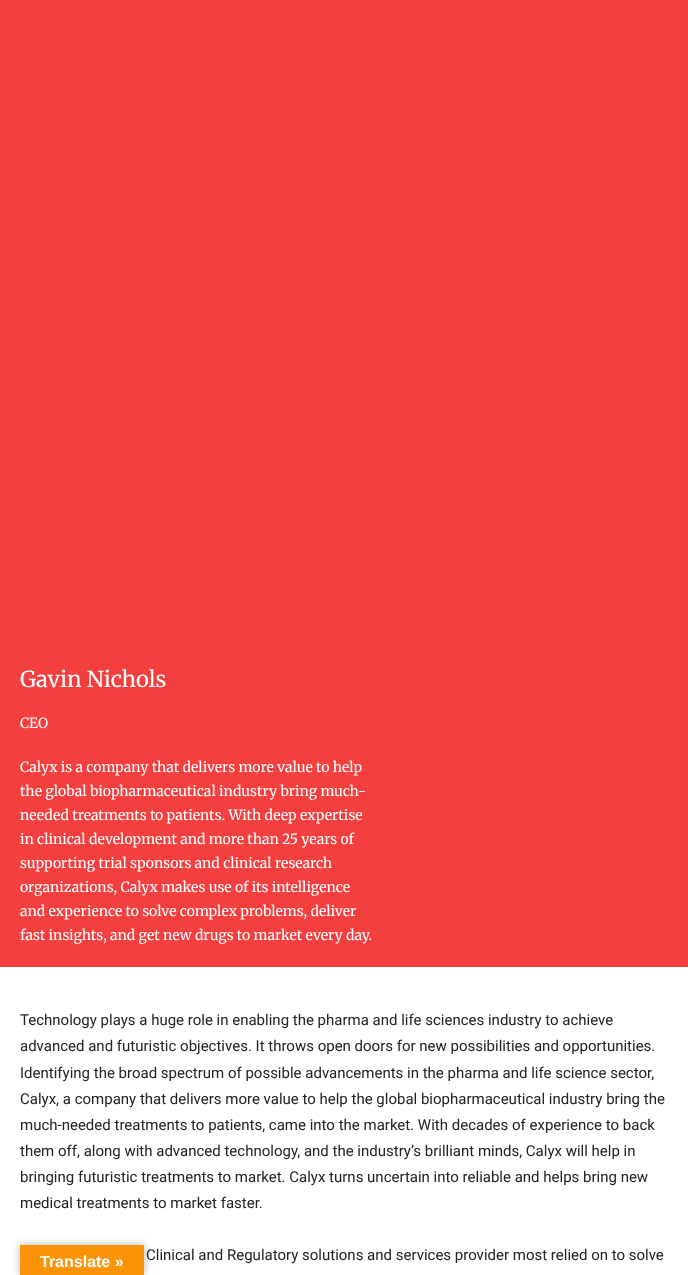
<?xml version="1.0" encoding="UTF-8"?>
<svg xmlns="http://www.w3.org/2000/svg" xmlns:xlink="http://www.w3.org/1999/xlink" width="688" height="1275">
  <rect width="100%" height="100%" fill="#ffffff" />
  <rect width="688" height="967" fill="#f43f3f" />
  <rect x="20" y="1245" width="124" height="30" fill="#000000" fill-opacity="0.3" filter="blur(4.5px)" />
  <rect x="20" y="1245" width="124" height="30" fill="#f89406" />
  <text x="20" y="687" style="font-family: Merriweather; font-size: 22px; fill: #ffffff">Gavin Nichols</text>
  <text x="20" y="728" style="font-family: Merriweather; font-size: 14px; fill: #ffffff">CEO</text>
  <text x="20" y="772" style="font-family: Merriweather; font-size: 14px; fill: #ffffff">Calyx is a company that delivers more value to help</text>
  <text x="20" y="796" style="font-family: Merriweather; font-size: 14px; fill: #ffffff">the global biopharmaceutical industry bring much-</text>
  <text x="20" y="820" style="font-family: Merriweather; font-size: 14px; fill: #ffffff">needed treatments to patients. With deep expertise</text>
  <text x="20" y="844" style="font-family: Merriweather; font-size: 14px; fill: #ffffff">in clinical development and more than 25 years of</text>
  <text x="20" y="868" style="font-family: Merriweather; font-size: 14px; fill: #ffffff">supporting trial sponsors and clinical research</text>
  <text x="20" y="892" style="font-family: Merriweather; font-size: 14px; fill: #ffffff">organizations, Calyx makes use of its intelligence</text>
  <text x="20" y="916" style="font-family: Merriweather; font-size: 14px; fill: #ffffff">and experience to solve complex problems, deliver</text>
  <text x="20" y="940" style="font-family: Merriweather; font-size: 14px; fill: #ffffff">fast insights, and get new drugs to market every day.</text>
  <text x="20" y="1025" style="font-family: Roboto; font-size: 15px; fill: #222222">Technology plays a huge role in enabling the pharma and life sciences industry to achieve</text>
  <text x="20" y="1051" style="font-family: Roboto; font-size: 15px; fill: #222222">advanced and futuristic objectives. It throws open doors for new possibilities and opportunities.</text>
  <text x="20" y="1078" style="font-family: Roboto; font-size: 15px; fill: #222222">Identifying the broad spectrum of possible advancements in the pharma and life science sector,</text>
  <text x="20" y="1104" style="font-family: Roboto; font-size: 15px; fill: #222222">Calyx, a company that delivers more value to help the global biopharmaceutical industry bring the</text>
  <text x="20" y="1130" style="font-family: Roboto; font-size: 15px; fill: #222222">much-needed treatments to patients, came into the market. With decades of experience to back</text>
  <text x="20" y="1156" style="font-family: Roboto; font-size: 15px; fill: #222222">them off, along with advanced technology, and the industry’s brilliant minds, Calyx will help in</text>
  <text x="20" y="1182" style="font-family: Roboto; font-size: 15px; fill: #222222">bringing futuristic treatments to market. Calyx turns uncertain into reliable and helps bring new</text>
  <text x="20" y="1208" style="font-family: Roboto; font-size: 15px; fill: #222222">medical treatments to market faster.</text>
  <text x="146" y="1260" style="font-family: Roboto; font-size: 15px; fill: #222222">Clinical and Regulatory solutions and services provider most relied on to solve</text>
  <text x="40" y="1267" style="font-family: Liberation Sans; font-size: 16px; font-weight: bold; fill: #ffffff">Translate »</text>
</svg>
